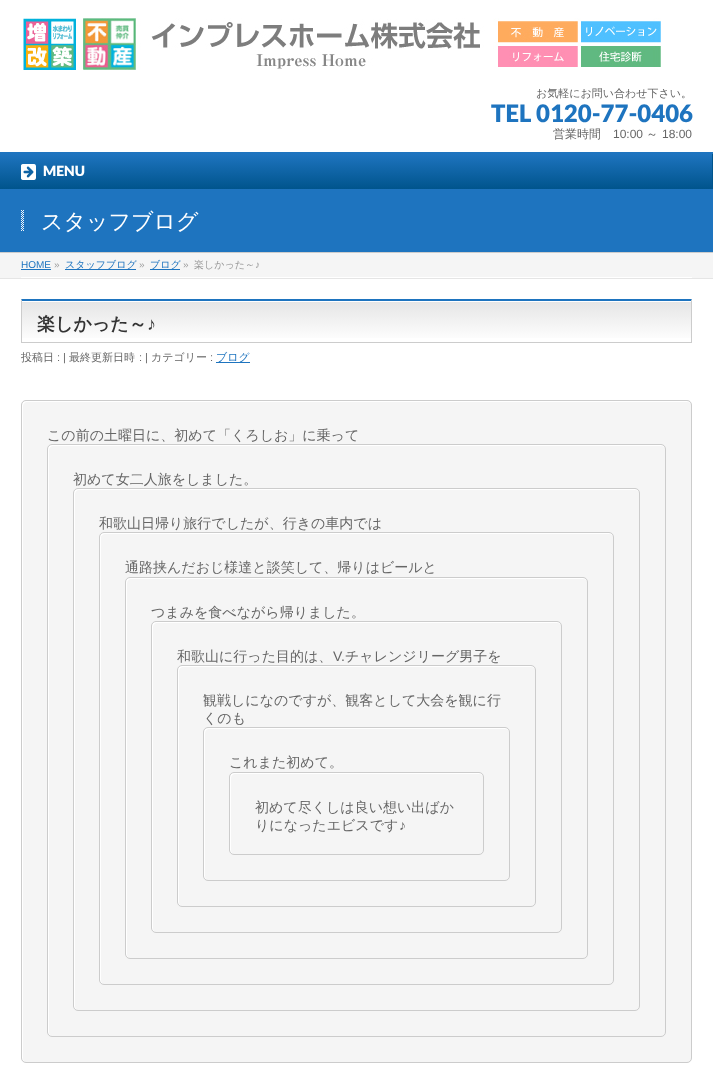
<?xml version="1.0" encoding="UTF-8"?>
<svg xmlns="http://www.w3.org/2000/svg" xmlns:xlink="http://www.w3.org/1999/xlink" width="713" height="1085">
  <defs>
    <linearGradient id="g1" gradientUnits="userSpaceOnUse" x1="356" y1="154" x2="356" y2="189"><stop offset="0" stop-color="#1e74bf" /><stop offset="1" stop-color="#00548c" /></linearGradient>
    <linearGradient id="g2" gradientUnits="userSpaceOnUse" x1="22" y1="301" x2="22" y2="342"><stop offset="0" stop-color="#e5e5e5" /><stop offset="1" stop-color="#ffffff" /></linearGradient>
  </defs>
  <rect width="100%" height="100%" fill="#ffffff" />
  <image x="23" y="18" width="638" height="52" xlink:href="image1.png" />
  <rect y="152" width="713" height="2" fill="#1e74bf" />
  <rect y="154" width="712" height="35" fill="url(#g1)" />
  <rect x="712" y="154" width="1" height="35" fill="#00548c" />
  <image x="21" y="164" width="15" height="16" xlink:href="image2.png" />
  <rect y="189" width="713" height="63" fill="#1e74bf" />
  <rect y="252" width="713" height="1" fill="#cccccc" />
  <image x="21" y="210" width="3" height="21" xlink:href="image3.png" />
  <rect y="253" width="713" height="25" fill="#f5f5f5" />
  <rect y="278" width="713" height="1" fill="#e5e5e5" />
  <rect x="21" y="277" width="671" height="1" fill="#ffffff" />
  <rect x="21" y="269" width="30" height="1" fill="#1e74bf" />
  <rect x="65" y="269" width="71" height="1" fill="#1e74bf" />
  <rect x="150" y="269" width="30" height="1" fill="#1e74bf" />
  <rect x="22" y="302" width="669" height="36" fill="url(#g2)" />
  <path d="M 21 299 h 671 l -1 2 h -669 z" fill="#1e74bf" />
  <path d="M 692 299 v 44 l -1 -1 v -41 z" fill="#cccccc" />
  <rect x="21" y="342" width="671" height="1" fill="#cccccc" />
  <path d="M 21 343 v -44 l 1 2 v 41 z" fill="#cccccc" />
  <rect x="216" y="362" width="34" height="1" fill="#1e74bf" />
  <rect x="21" y="400" width="671" height="663" rx="5" fill="#f5f5f5" />
  <path d="M 27 402 h 661 l 2 1 c 0 -1 -2 -2 -3 -2 h -661 c -2 0 -4 2 -4 4 v 653 c 0 1 1 3 2 3 l -1 -2 v -653 c 0 -2 2 -4 4 -4 z" fill="#ffffff" />
  <rect x="21.5" y="400.5" width="670" height="662" rx="4.5" fill="none" stroke="#cccccc" />
  <path d="M 53 446 h 609 l 2 1 c 0 -1 -2 -2 -3 -2 h -609 c -2 0 -4 2 -4 4 v 583 c 0 1 1 3 2 3 l -1 -2 v -583 c 0 -2 2 -4 4 -4 z" fill="#ffffff" />
  <rect x="47.5" y="444.5" width="618" height="592" rx="4.5" fill="none" stroke="#cccccc" />
  <path d="M 79 490 h 557 l 2 1 c 0 -1 -2 -2 -3 -2 h -557 c -2 0 -4 2 -4 4 v 513 c 0 1 1 3 2 3 l -1 -2 v -513 c 0 -2 2 -4 4 -4 z" fill="#ffffff" />
  <rect x="73.5" y="488.5" width="566" height="522" rx="4.5" fill="none" stroke="#cccccc" />
  <path d="M 105 534 h 505 l 2 1 c 0 -1 -2 -2 -3 -2 h -505 c -2 0 -4 2 -4 4 v 443 c 0 1 1 3 2 3 l -1 -2 v -444 c 0 -1 2 -3 4 -3 z" fill="#ffffff" />
  <rect x="99.5" y="532.5" width="514" height="452" rx="4.5" fill="none" stroke="#cccccc" />
  <path d="M 131 579 h 453 l 2 1 c 0 -1 -2 -2 -3 -2 h -453 c -2 0 -4 2 -4 4 v 372 c 0 1 1 3 2 3 l -1 -2 v -372 c 0 -2 2 -4 4 -4 z" fill="#ffffff" />
  <rect x="125.5" y="577.5" width="462" height="381" rx="4.5" fill="none" stroke="#cccccc" />
  <path d="M 157 623 h 401 l 2 1 c 0 -1 -2 -2 -3 -2 h -401 c -2 0 -4 2 -4 4 v 302 c 0 1 1 3 2 3 l -1 -2 v -302 c 0 -2 2 -4 4 -4 z" fill="#ffffff" />
  <rect x="151.5" y="621.5" width="410" height="311" rx="4.5" fill="none" stroke="#cccccc" />
  <path d="M 183 667 h 349 l 2 1 c 0 -1 -2 -2 -3 -2 h -349 c -2 0 -4 2 -4 4 v 232 c 0 1 1 3 2 3 l -1 -2 v -232 c 0 -2 2 -4 4 -4 z" fill="#ffffff" />
  <rect x="177.5" y="665.5" width="358" height="241" rx="4.5" fill="none" stroke="#cccccc" />
  <path d="M 209 729 h 297 l 2 1 c 0 -1 -2 -2 -3 -2 h -297 c -2 0 -4 2 -4 4 v 144 c 0 1 1 3 2 3 l -1 -2 v -144 c 0 -2 2 -4 4 -4 z" fill="#ffffff" />
  <rect x="203.5" y="727.5" width="306" height="153" rx="4.5" fill="none" stroke="#cccccc" />
  <path d="M 235 774 h 245 l 2 1 c 0 -1 -2 -2 -3 -2 h -245 c -2 0 -4 2 -4 4 v 73 c 0 1 1 3 2 3 l -1 -2 v -73 c 0 -2 2 -4 4 -4 z" fill="#ffffff" />
  <rect x="229.5" y="772.5" width="254" height="82" rx="4.5" fill="none" stroke="#cccccc" />
  <text x="536" y="97" style="font-family: WenQuanYi Zen Hei; font-size: 11px; font-weight: 500; fill: #666666">お気軽にお問い合わせ下さい。</text>
  <text x="491" y="122" style="font-family: Lato; font-size: 24px; font-weight: 900; fill: #1e74bf">TEL 0120-77-0406</text>
  <text x="553" y="138" style="font-family: WenQuanYi Zen Hei; font-size: 12px; font-weight: 500; fill: #666666">営業時間</text>
  <text x="613" y="138" style="font-family: Liberation Sans; font-size: 12px; fill: #666666">10:00</text>
  <text x="646" y="138" style="font-family: WenQuanYi Zen Hei; font-size: 12px; font-weight: 500; fill: #666666">～</text>
  <text x="662" y="138" style="font-family: Liberation Sans; font-size: 12px; fill: #666666">18:00</text>
  <text x="43" y="176" style="font-family: Lato; font-size: 14px; font-weight: 900; fill: #ffffff">MENU</text>
  <text x="41" y="229" style="font-family: WenQuanYi Zen Hei; font-size: 22px; font-weight: 500; fill: #ffffff">スタッフブログ</text>
  <text x="21" y="268" style="font-family: Liberation Sans; font-size: 10px; fill: #1e74bf">HOME</text>
  <text x="54" y="268" style="font-family: Liberation Sans; font-size: 10px; fill: #999999">»</text>
  <text x="65" y="268" style="font-family: WenQuanYi Zen Hei; font-size: 10px; font-weight: 500; fill: #1e74bf">スタッフブログ</text>
  <text x="139" y="268" style="font-family: Liberation Sans; font-size: 10px; fill: #999999">»</text>
  <text x="150" y="268" style="font-family: WenQuanYi Zen Hei; font-size: 10px; font-weight: 500; fill: #1e74bf">ブログ</text>
  <text x="183" y="268" style="font-family: Liberation Sans; font-size: 10px; fill: #999999">»</text>
  <text x="194" y="268" style="font-family: WenQuanYi Zen Hei; font-size: 10px; font-weight: 500; fill: #999999">楽しかった～</text>
  <text x="255" y="268" style="font-family: Liberation Sans; font-size: 10px; fill: #999999">♪</text>
  <text x="37" y="330" style="font-family: WenQuanYi Zen Hei; font-size: 18px; font-weight: bold; fill: #333333">楽しかった～</text>
  <text x="147" y="330" style="font-family: Liberation Sans; font-size: 18px; font-weight: bold; fill: #333333">♪</text>
  <text x="21" y="361" style="font-family: WenQuanYi Zen Hei; font-size: 11px; font-weight: 500; fill: #666666">投稿日</text>
  <text x="57" y="361" style="font-family: Liberation Sans; font-size: 11px; fill: #666666">: |</text>
  <text x="69" y="361" style="font-family: WenQuanYi Zen Hei; font-size: 11px; font-weight: 500; fill: #666666">最終更新日時</text>
  <text x="139" y="361" style="font-family: Liberation Sans; font-size: 11px; fill: #666666">: |</text>
  <text x="151" y="361" style="font-family: WenQuanYi Zen Hei; font-size: 11px; font-weight: 500; fill: #666666">カテゴリー</text>
  <text x="210" y="361" style="font-family: Liberation Sans; font-size: 11px; fill: #666666">:</text>
  <text x="216" y="361" style="font-family: WenQuanYi Zen Hei; font-size: 11px; font-weight: 500; fill: #1e74bf">ブログ</text>
  <text x="47" y="440" style="font-family: WenQuanYi Zen Hei; font-size: 14px; font-weight: 500; fill: #666666">この前の土曜日に、初めて「くろしお」に乗って</text>
  <text x="73" y="484" style="font-family: WenQuanYi Zen Hei; font-size: 14px; font-weight: 500; fill: #666666">初めて女二人旅をしました。</text>
  <text x="99" y="528" style="font-family: WenQuanYi Zen Hei; font-size: 14px; font-weight: 500; fill: #666666">和歌山日帰り旅行でしたが、行きの車内では</text>
  <text x="125" y="572" style="font-family: WenQuanYi Zen Hei; font-size: 14px; font-weight: 500; fill: #666666">通路挟んだおじ様達と談笑して、帰りはビールと</text>
  <text x="151" y="617" style="font-family: WenQuanYi Zen Hei; font-size: 14px; font-weight: 500; fill: #666666">つまみを食べながら帰りました。</text>
  <text x="177" y="661" style="font-family: WenQuanYi Zen Hei; font-size: 14px; font-weight: 500; fill: #666666">和歌山に行った目的は、</text>
  <text x="333" y="661" style="font-family: Liberation Sans; font-size: 14px; fill: #666666">V.</text>
  <text x="345" y="661" style="font-family: WenQuanYi Zen Hei; font-size: 14px; font-weight: 500; fill: #666666">チャレンジリーグ男子を</text>
  <text x="203" y="705" style="font-family: WenQuanYi Zen Hei; font-size: 14px; font-weight: 500; fill: #666666">観戦しになのですが、観客として大会を観に行</text>
  <text x="203" y="723" style="font-family: WenQuanYi Zen Hei; font-size: 14px; font-weight: 500; fill: #666666">くのも</text>
  <text x="229" y="767" style="font-family: WenQuanYi Zen Hei; font-size: 14px; font-weight: 500; fill: #666666">これまた初めて。</text>
  <text x="255" y="812" style="font-family: WenQuanYi Zen Hei; font-size: 14px; font-weight: 500; fill: #666666">初めて尽くしは良い想い出ばか</text>
  <text x="255" y="830" style="font-family: WenQuanYi Zen Hei; font-size: 14px; font-weight: 500; fill: #666666">りになったエビスです</text>
  <text x="399" y="830" style="font-family: Liberation Sans; font-size: 14px; fill: #666666">♪</text>
</svg>
